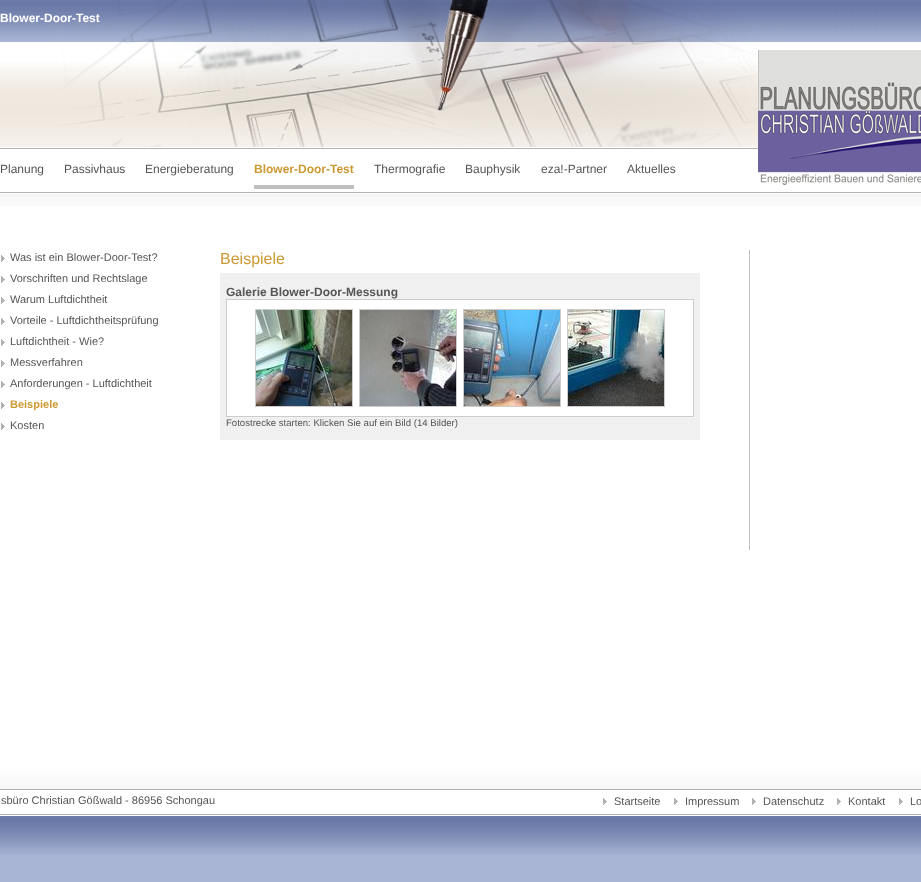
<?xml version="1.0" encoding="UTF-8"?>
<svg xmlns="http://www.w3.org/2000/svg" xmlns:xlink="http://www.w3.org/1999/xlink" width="921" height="882">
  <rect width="100%" height="100%" fill="#ffffff" />
  <image x="0" y="0" width="921" height="206" xlink:href="image1.png" />
  <image x="50" y="0" width="734" height="147" xlink:href="image2.png" />
  <rect x="254" y="185" width="100" height="4" fill="#c0c0c0" />
  <image x="757" y="50" width="164" height="135" xlink:href="image3.png" />
  <image x="1" y="255" width="4" height="7" xlink:href="image4.png" />
  <image x="1" y="276" width="4" height="7" xlink:href="image4.png" />
  <image x="1" y="297" width="4" height="7" xlink:href="image4.png" />
  <image x="1" y="318" width="4" height="7" xlink:href="image4.png" />
  <image x="1" y="339" width="4" height="7" xlink:href="image4.png" />
  <image x="1" y="360" width="4" height="7" xlink:href="image4.png" />
  <image x="1" y="381" width="4" height="7" xlink:href="image4.png" />
  <image x="1" y="402" width="4" height="7" xlink:href="image4.png" />
  <image x="1" y="423" width="4" height="7" xlink:href="image4.png" />
  <rect x="220" y="273" width="480" height="167" fill="#f0f0f0" />
  <rect x="226.5" y="299.5" width="467" height="117" fill="#ffffff" stroke="#cccccc" />
  <rect x="255.5" y="309.5" width="97" height="97" fill="none" stroke="#cccccc" />
  <rect x="359.5" y="309.5" width="97" height="97" fill="none" stroke="#cccccc" />
  <rect x="463.5" y="309.5" width="97" height="97" fill="none" stroke="#cccccc" />
  <rect x="567.5" y="309.5" width="97" height="97" fill="none" stroke="#cccccc" />
  <image x="256" y="310" width="96" height="96" xlink:href="image5.png" />
  <image x="360" y="310" width="96" height="96" xlink:href="image6.png" />
  <image x="464" y="310" width="96" height="96" xlink:href="image7.png" />
  <image x="568" y="310" width="96" height="96" xlink:href="image8.png" />
  <rect x="749" y="250" width="1" height="300" fill="#c0c0c0" />
  <rect y="855" width="921" height="27" fill="#a8b5d4" />
  <image x="0" y="764" width="921" height="91" xlink:href="image9.png" />
  <image x="603" y="798" width="4" height="7" xlink:href="image4.png" />
  <image x="674" y="798" width="4" height="7" xlink:href="image4.png" />
  <image x="752" y="798" width="4" height="7" xlink:href="image4.png" />
  <image x="837" y="798" width="4" height="7" xlink:href="image4.png" />
  <image x="899" y="798" width="4" height="7" xlink:href="image4.png" />
  <text x="0" y="22" style="font-family: Liberation Sans; font-size: 12px; font-weight: bold; fill: #ffffff">Blower-Door-Test</text>
  <text x="0" y="173" style="font-family: Liberation Sans; font-size: 12px; fill: #555555">Planung</text>
  <text x="64" y="173" style="font-family: Liberation Sans; font-size: 12px; fill: #555555">Passivhaus</text>
  <text x="145" y="173" style="font-family: Liberation Sans; font-size: 12px; fill: #555555">Energieberatung</text>
  <text x="254" y="173" style="font-family: Liberation Sans; font-size: 12px; font-weight: bold; fill: #cc9933">Blower-Door-Test</text>
  <text x="374" y="173" style="font-family: Liberation Sans; font-size: 12px; fill: #555555">Thermografie</text>
  <text x="465" y="173" style="font-family: Liberation Sans; font-size: 12px; fill: #555555">Bauphysik</text>
  <text x="541" y="173" style="font-family: Liberation Sans; font-size: 12px; fill: #555555">eza!-Partner</text>
  <text x="627" y="173" style="font-family: Liberation Sans; font-size: 12px; fill: #555555">Aktuelles</text>
  <text x="10" y="261" style="font-family: Liberation Sans; font-size: 11px; fill: #555555">Was ist ein Blower-Door-Test?</text>
  <text x="10" y="282" style="font-family: Liberation Sans; font-size: 11px; fill: #555555">Vorschriften und Rechtslage</text>
  <text x="10" y="303" style="font-family: Liberation Sans; font-size: 11px; fill: #555555">Warum Luftdichtheit</text>
  <text x="10" y="324" style="font-family: Liberation Sans; font-size: 11px; fill: #555555">Vorteile - Luftdichtheitsprüfung</text>
  <text x="10" y="345" style="font-family: Liberation Sans; font-size: 11px; fill: #555555">Luftdichtheit - Wie?</text>
  <text x="10" y="366" style="font-family: Liberation Sans; font-size: 11px; fill: #555555">Messverfahren</text>
  <text x="10" y="387" style="font-family: Liberation Sans; font-size: 11px; fill: #555555">Anforderungen - Luftdichtheit</text>
  <text x="10" y="408" style="font-family: Liberation Sans; font-size: 11px; font-weight: bold; fill: #cc9933">Beispiele</text>
  <text x="10" y="429" style="font-family: Liberation Sans; font-size: 11px; fill: #555555">Kosten</text>
  <text x="220" y="264" style="font-family: Liberation Sans; font-size: 16px; fill: #cc9933">Beispiele</text>
  <text x="226" y="296" style="font-family: Liberation Sans; font-size: 12px; font-weight: bold; fill: #555555">Galerie Blower-Door-Messung</text>
  <text x="226" y="426" style="font-family: Liberation Sans; font-size: 9.6px; fill: #555555">Fotostrecke starten: Klicken Sie auf ein Bild (14 Bilder)</text>
  <text x="1" y="804" style="font-family: Liberation Sans; font-size: 11px; fill: #555555">sbüro Christian Gößwald - 86956 Schongau</text>
  <text x="614" y="805" style="font-family: Liberation Sans; font-size: 11px; fill: #555555">Startseite</text>
  <text x="685" y="805" style="font-family: Liberation Sans; font-size: 11px; fill: #555555">Impressum</text>
  <text x="763" y="805" style="font-family: Liberation Sans; font-size: 11px; fill: #555555">Datenschutz</text>
  <text x="848" y="805" style="font-family: Liberation Sans; font-size: 11px; fill: #555555">Kontakt</text>
  <text x="910" y="805" style="font-family: Liberation Sans; font-size: 11px; fill: #555555">Lo</text>
</svg>
